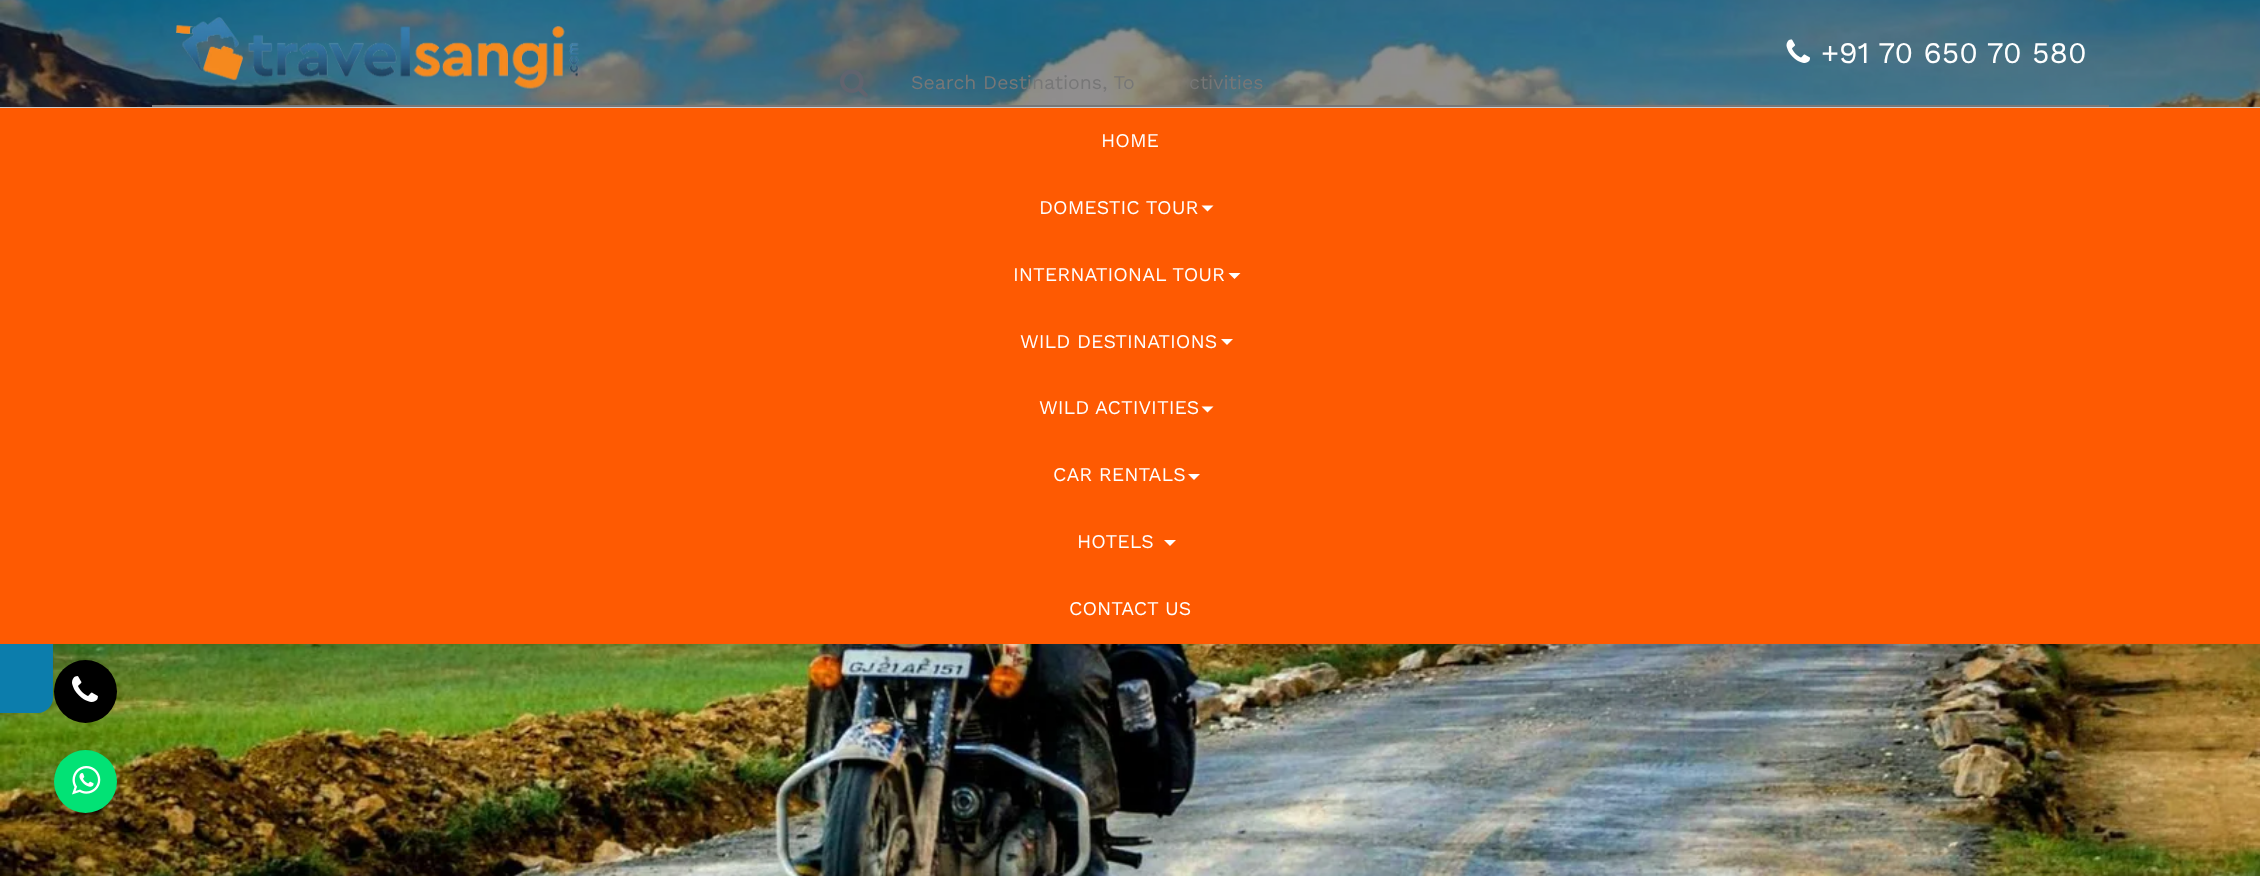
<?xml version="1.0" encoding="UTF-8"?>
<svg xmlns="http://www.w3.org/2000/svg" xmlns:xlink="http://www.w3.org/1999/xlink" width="2260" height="876">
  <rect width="100%" height="100%" fill="#ffffff" />
  <image x="0" y="0" width="2260" height="876" xlink:href="image1.png" />
  <path d="M 53 533 v 165 c 0 8 -7 15 -15 15 h -38 v -195 h 38 c 8 0 15 7 15 15 z" fill="#0c7dac" />
  <circle cx="85.5" cy="691.5" r="31.5" fill="#000000" />
  <image x="72" y="676" width="26" height="26" xlink:href="image2.png" />
  <rect width="2260" height="107" fill="#161313" fill-opacity="0.48" />
  <rect y="107" width="2260" height="1" fill="#cccccc" />
  <rect x="152" y="105" width="1957" height="2" fill="#777777" />
  <image x="175" y="17" width="404" height="72" xlink:href="image3.png" />
  <image x="1786" y="39" width="24" height="24" xlink:href="image4.png" />
  <image x="840" y="70" width="28" height="27" xlink:href="image5.png" />
  <rect y="108" width="2260" height="536" fill="#fe5a02" />
  <path d="M 1201.5 205.5 h 12 l -6 6 z" fill="#ffffff" />
  <path d="M 1228.5 273 h 12 l -6 6 z" fill="#ffffff" />
  <path d="M 1221 339 h 12 l -6 6 z" fill="#ffffff" />
  <path d="M 1201.5 406.5 h 12 l -6 6 z" fill="#ffffff" />
  <path d="M 1188 474 h 12 l -6 6 z" fill="#ffffff" />
  <path d="M 1164 540 h 12 l -6 6 z" fill="#ffffff" />
  <rect x="54" y="765" width="63" height="63" rx="31.5" fill="#000000" fill-opacity="0.1" filter="blur(25px)" />
  <circle cx="85.5" cy="781.5" r="31.5" fill="#02e275" />
  <image x="72" y="766" width="29" height="29" xlink:href="image6.png" />
  <text x="1821" y="63" style="font-family: Work Sans; font-size: 30px; fill: #ffffff">+91 70 650 70 580</text>
  <text x="911" y="89" style="font-family: Work Sans; font-size: 19.5px; fill: #777777">Search Destinations, To</text>
  <text x="1189" y="89" style="font-family: Work Sans; font-size: 19.5px; fill: #777777">ctivities</text>
  <text x="1101" y="147" style="font-family: Work Sans; font-size: 19.5px; fill: #ffffff">HOME</text>
  <text x="1039" y="214" style="font-family: Work Sans; font-size: 19.5px; fill: #ffffff">DOMESTIC TOUR</text>
  <text x="1013" y="281" style="font-family: Work Sans; font-size: 19.5px; fill: #ffffff">INTERNATIONAL TOUR</text>
  <text x="1020" y="348" style="font-family: Work Sans; font-size: 19.5px; fill: #ffffff">WILD DESTINATIONS</text>
  <text x="1039" y="414" style="font-family: Work Sans; font-size: 19.5px; fill: #ffffff">WILD ACTIVITIES</text>
  <text x="1053" y="481" style="font-family: Work Sans; font-size: 19.5px; fill: #ffffff">CAR RENTALS</text>
  <text x="1077" y="548" style="font-family: Work Sans; font-size: 19.5px; fill: #ffffff">HOTELS</text>
  <text x="1069" y="615" style="font-family: Work Sans; font-size: 19.5px; fill: #ffffff">CONTACT US</text>
</svg>
